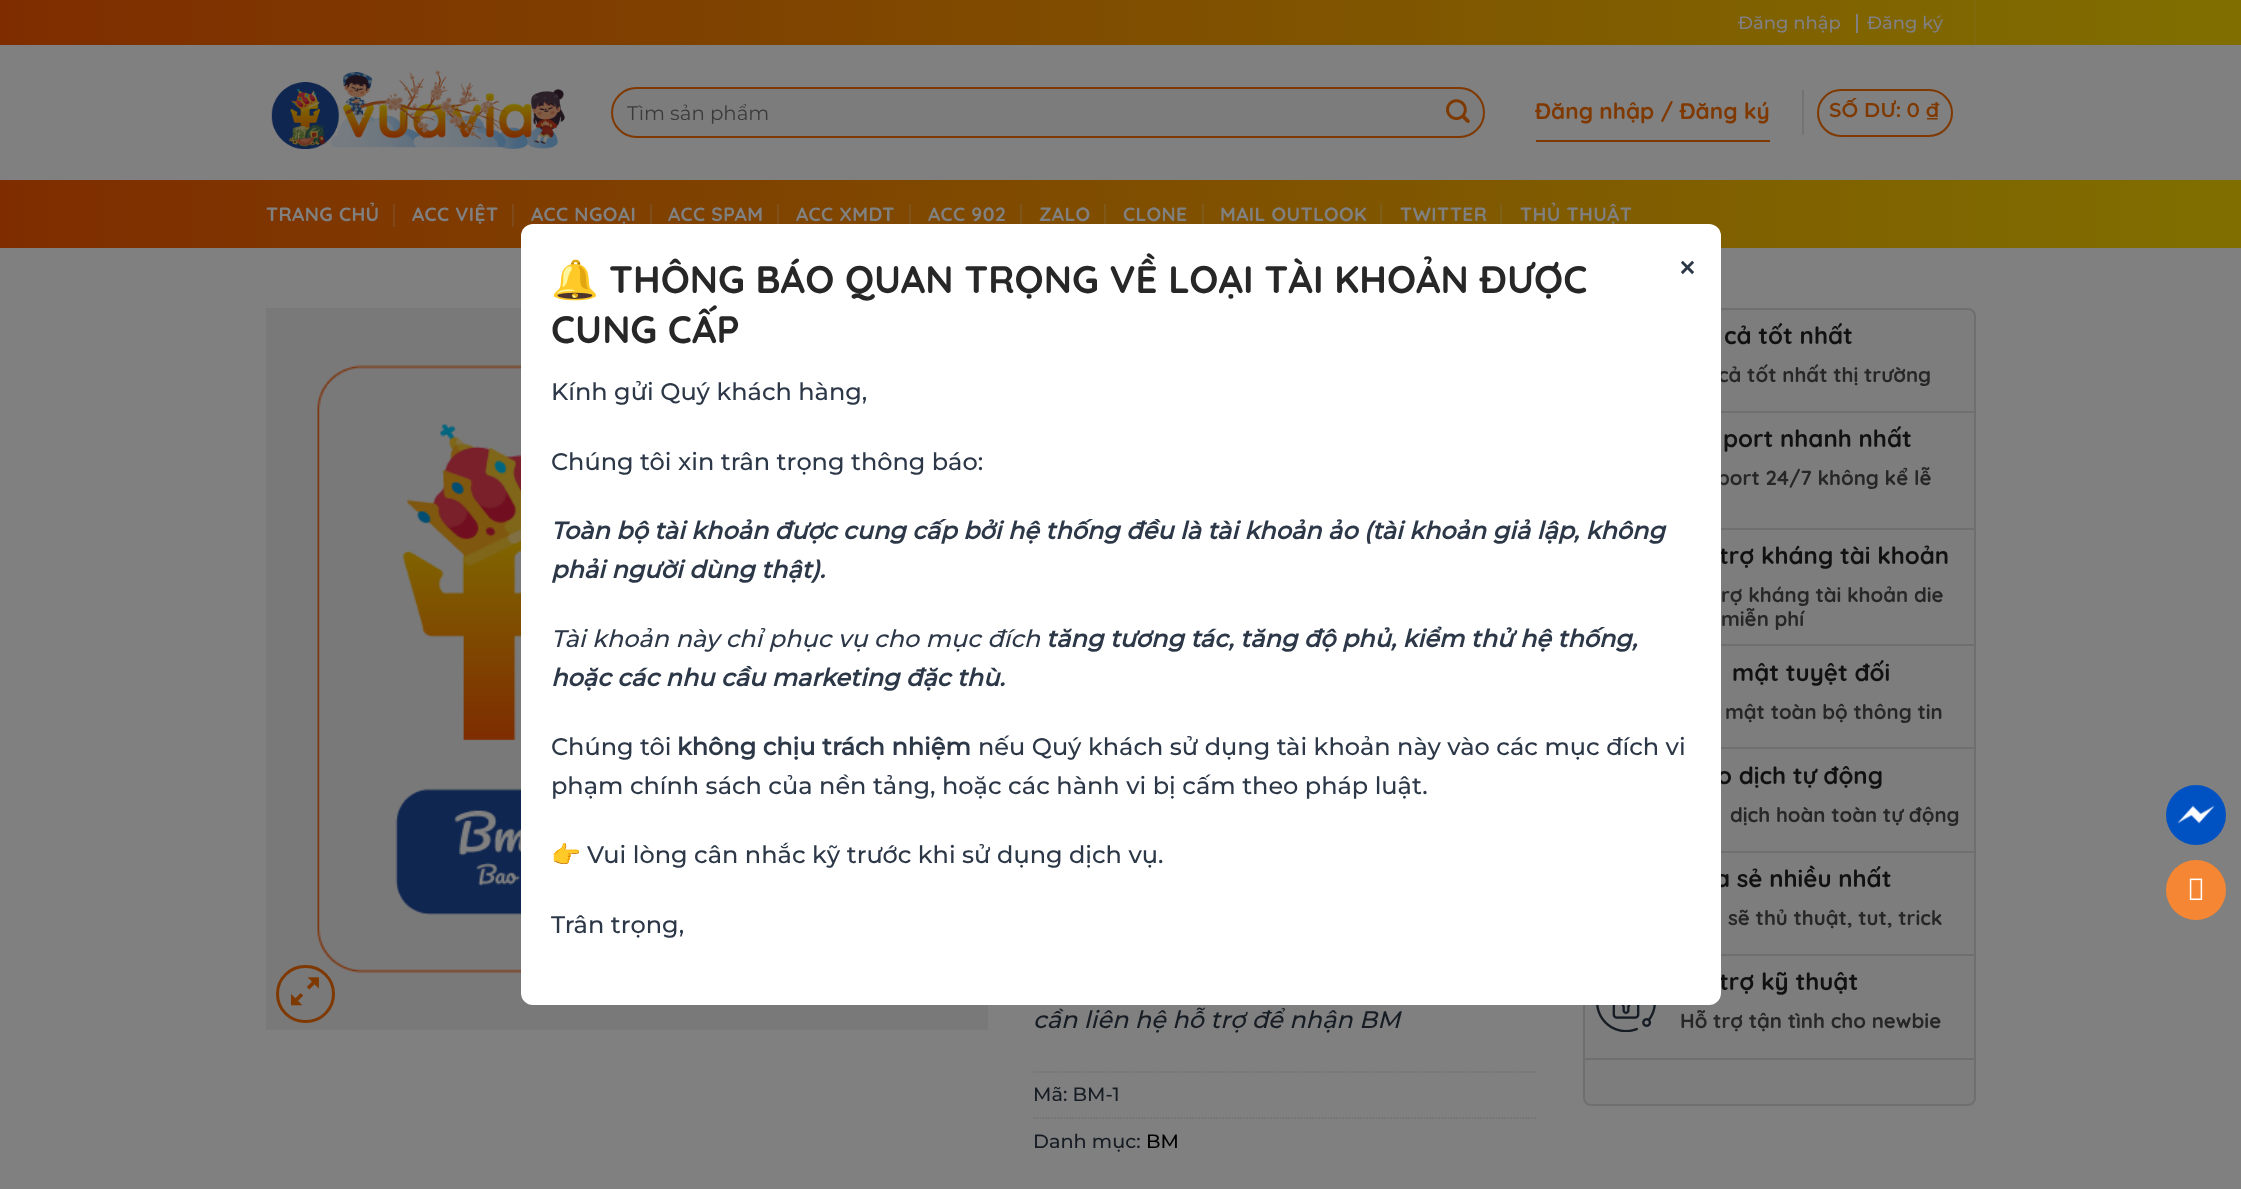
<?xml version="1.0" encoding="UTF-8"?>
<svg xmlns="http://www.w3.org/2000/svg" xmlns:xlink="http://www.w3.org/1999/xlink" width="2241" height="1189">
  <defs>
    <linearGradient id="g1" gradientUnits="userSpaceOnUse" x1="0" y1="23" x2="2241" y2="22"><stop offset="0" stop-color="#7f2d00" /><stop offset="1" stop-color="#806f00" /></linearGradient>
    <linearGradient id="g2" gradientUnits="userSpaceOnUse" x1="0" y1="214" x2="2241" y2="214"><stop offset="0" stop-color="#7f2d00" /><stop offset="1" stop-color="#806f00" /></linearGradient>
  </defs>
  <rect width="100%" height="100%" fill="#808080" />
  <rect width="2241" height="45" fill="url(#g1)" />
  <rect x="1856" y="14" width="2" height="19" fill="#808080" />
  <rect x="1974" width="2" height="45" fill="#806a0d" />
  <image x="271" y="70" width="294" height="79" xlink:href="image1.png" />
  <rect x="612" y="88" width="872" height="49" rx="24.5" fill="#7c7c7c" stroke="#7f3900" stroke-width="2" />
  <image x="1446" y="99" width="24" height="24" xlink:href="image2.png" />
  <rect x="1536" y="140" width="234" height="2" fill="#7f3800" />
  <rect x="1802" y="90" width="2" height="45" fill="#737373" />
  <rect x="1818" y="90" width="134" height="46" rx="23" fill="none" stroke="#7f3900" stroke-width="2" />
  <rect y="180" width="2241" height="68" fill="url(#g2)" />
  <rect x="393" y="204" width="2" height="23" fill="#7f471a" />
  <rect x="512" y="204" width="2" height="23" fill="#7f491a" />
  <rect x="650" y="204" width="2" height="23" fill="#7f4d1a" />
  <rect x="777" y="204" width="2" height="23" fill="#7f501a" />
  <rect x="909" y="204" width="2" height="23" fill="#7f531a" />
  <rect x="1020" y="204" width="2" height="23" fill="#7f561a" />
  <rect x="1104" y="204" width="2" height="23" fill="#7f581a" />
  <rect x="1202" y="204" width="2" height="23" fill="#7f5a1a" />
  <rect x="1380" y="204" width="2" height="23" fill="#7f5e1a" />
  <rect x="1500" y="204" width="2" height="23" fill="#7f611a" />
  <rect x="1584" y="309" width="391" height="796" rx="7" fill="#7d7d7d" stroke="#6f6f6f" stroke-width="2" />
  <rect x="1721" y="411" width="253" height="2" fill="#6f6f6f" />
  <rect x="1721" y="528" width="253" height="2" fill="#6f6f6f" />
  <rect x="1721" y="644" width="253" height="2" fill="#6f6f6f" />
  <rect x="1721" y="747" width="253" height="2" fill="#6f6f6f" />
  <rect x="1721" y="851" width="253" height="2" fill="#6f6f6f" />
  <rect x="1721" y="954" width="253" height="2" fill="#6f6f6f" />
  <rect x="1584" y="1058" width="390" height="2" fill="#6f6f6f" />
  <image x="1596" y="1005" width="60" height="27" xlink:href="image3.png" />
  <image x="266" y="308" width="722" height="722" xlink:href="image4.png" />
  <rect x="277.5" y="966.5" width="56" height="55" rx="27.5" fill="none" stroke="#7f3900" stroke-width="3" />
  <image x="291" y="977" width="28" height="29" xlink:href="image5.png" />
  <path d="M 1033.5 1072 h 504" fill="none" stroke="#6f6f6f" stroke-width="1.5" stroke-dasharray="1.5 1.5" />
  <path d="M 1033.5 1118 h 504" fill="none" stroke="#6f6f6f" stroke-width="1.5" stroke-dasharray="1.5 1.5" />
  <circle cx="2196" cy="815" r="30" fill="#0052c2" />
  <image x="2177" y="805" width="38" height="19" xlink:href="image6.png" />
  <circle cx="2196" cy="890" r="30" fill="#f58634" />
  <image x="2189" y="878" width="14" height="22" xlink:href="image7.png" />
  <text x="1738" y="29" style="font-family: Montserrat; font-size: 18px; font-weight: 500; fill: #808080">Đăng nhập</text>
  <text x="1867" y="29" style="font-family: Montserrat; font-size: 18px; font-weight: 500; fill: #808080">Đăng ký</text>
  <text x="627" y="120" style="font-family: Montserrat; font-size: 19.75px; fill: #3b3b3b">Tìm sản phẩm</text>
  <text x="1535" y="119" style="font-family: Quicksand; font-size: 22.5px; font-weight: bold; fill: #7f3900">Đăng nhập / Đăng ký</text>
  <text x="1829" y="117" style="font-family: Montserrat; font-size: 19.25px; font-weight: bold; letter-spacing: 0.5px; fill: #7f3900">SỐ DƯ: 0 ₫</text>
  <text x="266" y="221" style="font-family: Quicksand; font-size: 19.25px; font-weight: bold; letter-spacing: 0.4px; fill: #808080">TRANG CHỦ</text>
  <text x="412" y="221" style="font-family: Quicksand; font-size: 19.25px; font-weight: bold; letter-spacing: 0.4px; fill: #808080">ACC VIỆT</text>
  <text x="531" y="221" style="font-family: Quicksand; font-size: 19.25px; font-weight: bold; letter-spacing: 0.4px; fill: #808080">ACC NGOẠI</text>
  <text x="668" y="221" style="font-family: Quicksand; font-size: 19.25px; font-weight: bold; letter-spacing: 0.4px; fill: #808080">ACC SPAM</text>
  <text x="796" y="221" style="font-family: Quicksand; font-size: 19.25px; font-weight: bold; letter-spacing: 0.4px; fill: #808080">ACC XMDT</text>
  <text x="928" y="221" style="font-family: Quicksand; font-size: 19.25px; font-weight: bold; letter-spacing: 0.4px; fill: #808080">ACC 902</text>
  <text x="1039" y="221" style="font-family: Quicksand; font-size: 19.25px; font-weight: bold; letter-spacing: 0.4px; fill: #808080">ZALO</text>
  <text x="1123" y="221" style="font-family: Quicksand; font-size: 19.25px; font-weight: bold; letter-spacing: 0.4px; fill: #808080">CLONE</text>
  <text x="1220" y="221" style="font-family: Quicksand; font-size: 19.25px; font-weight: bold; letter-spacing: 0.4px; fill: #808080">MAIL OUTLOOK</text>
  <text x="1400" y="221" style="font-family: Quicksand; font-size: 19.25px; font-weight: bold; letter-spacing: 0.4px; fill: #808080">TWITTER</text>
  <text x="1520" y="221" style="font-family: Quicksand; font-size: 19.25px; font-weight: bold; letter-spacing: 0.4px; fill: #808080">THỦ THUẬT</text>
  <text x="1724" y="344" style="font-family: Quicksand; font-size: 24px; font-weight: bold; fill: #111111">cả tốt nhất</text>
  <text x="1718" y="382" style="font-family: Quicksand; font-size: 20.4px; font-weight: bold; fill: #272727">cả tốt nhất thị trường</text>
  <text x="1723" y="447" style="font-family: Quicksand; font-size: 24px; font-weight: bold; fill: #111111">port nhanh nhất</text>
  <text x="1717" y="485" style="font-family: Quicksand; font-size: 20.4px; font-weight: bold; fill: #272727">port 24/7 không kể lễ</text>
  <text x="1719" y="564" style="font-family: Quicksand; font-size: 24px; font-weight: bold; fill: #111111">trợ kháng tài khoản</text>
  <text x="1721" y="602" style="font-family: Quicksand; font-size: 20.4px; font-weight: bold; fill: #272727">rợ kháng tài khoản die</text>
  <text x="1721" y="626" style="font-family: Quicksand; font-size: 20.4px; font-weight: bold; fill: #272727">miễn phí</text>
  <text x="1732" y="681" style="font-family: Quicksand; font-size: 24px; font-weight: bold; fill: #111111">mật tuyệt đối</text>
  <text x="1725" y="719" style="font-family: Quicksand; font-size: 20.4px; font-weight: bold; fill: #272727">mật toàn bộ thông tin</text>
  <text x="1717" y="784" style="font-family: Quicksand; font-size: 24px; font-weight: bold; fill: #111111">o dịch tự động</text>
  <text x="1730" y="822" style="font-family: Quicksand; font-size: 20.4px; font-weight: bold; fill: #272727">dịch hoàn toàn tự động</text>
  <text x="1715" y="887" style="font-family: Quicksand; font-size: 24px; font-weight: bold; fill: #111111">a sẻ nhiều nhất</text>
  <text x="1728" y="925" style="font-family: Quicksand; font-size: 20.4px; font-weight: bold; fill: #272727">sẽ thủ thuật, tut, trick</text>
  <text x="1719" y="990" style="font-family: Quicksand; font-size: 24px; font-weight: bold; fill: #111111">trợ kỹ thuật</text>
  <text x="1680" y="1028" style="font-family: Quicksand; font-size: 20.4px; font-weight: bold; fill: #272727">Hỗ trợ tận tình cho newbie</text>
  <text x="1033" y="1028" style="font-family: Montserrat; font-size: 24px; font-weight: 500; font-style: italic; fill: #161c24">cần liên hệ hỗ trợ để nhận BM</text>
  <text x="1033" y="1101" style="font-family: Montserrat; font-size: 19.25px; font-weight: 500; fill: #161c24">Mã: BM-1</text>
  <text x="1033" y="1148" style="font-family: Montserrat; font-size: 19.25px; font-weight: 500; fill: #161c24">Danh mục:</text>
  <text x="1146" y="1148" style="font-family: Montserrat; font-size: 19.25px; font-weight: 500; fill: #000000">BM</text>
  <rect x="521" y="224" width="1200" height="781" rx="12" fill="#ffffff" />
  <text x="551" y="293" style="font-family: Noto Color Emoji; font-size: 38.4px; font-weight: bold; fill: #272727">🔔</text>
  <text x="609" y="293" style="font-family: Quicksand; font-size: 38.4px; font-weight: bold; fill: #272727">THÔNG BÁO QUAN TRỌNG VỀ LOẠI TÀI KHOẢN ĐƯỢC</text>
  <text x="551" y="343" style="font-family: Quicksand; font-size: 38.4px; font-weight: bold; fill: #272727">CUNG CẤP</text>
  <text x="1677" y="280" style="font-family: Montserrat; font-size: 36px; font-weight: 500; fill: #2c3747">×</text>
  <text x="551" y="400" style="font-family: Montserrat; font-size: 24px; font-weight: 500; fill: #2c3747">Kính gửi Quý khách hàng,</text>
  <text x="551" y="470" style="font-family: Montserrat; font-size: 24px; font-weight: 500; fill: #2c3747">Chúng tôi xin trân trọng thông báo:</text>
  <text x="551" y="539" style="font-family: Montserrat; font-size: 24px; font-weight: bold; font-style: italic; fill: #2c3747">Toàn bộ tài khoản được cung cấp bởi hệ thống đều là tài khoản ảo (tài khoản giả lập, không</text>
  <text x="551" y="578" style="font-family: Montserrat; font-size: 24px; font-weight: bold; font-style: italic; fill: #2c3747">phải người dùng thật).</text>
  <text x="551" y="647" style="font-family: Montserrat; font-size: 24px; font-weight: 500; font-style: italic; fill: #2c3747">Tài khoản này chỉ phục vụ cho mục đích</text>
  <text x="1046" y="647" style="font-family: Montserrat; font-size: 24px; font-weight: bold; font-style: italic; fill: #2c3747">tăng tương tác, tăng độ phủ, kiểm thử hệ thống,</text>
  <text x="551" y="686" style="font-family: Montserrat; font-size: 24px; font-weight: bold; font-style: italic; fill: #2c3747">hoặc các nhu cầu marketing đặc thù.</text>
  <text x="551" y="755" style="font-family: Montserrat; font-size: 24px; font-weight: 500; fill: #2c3747">Chúng tôi</text>
  <text x="677" y="755" style="font-family: Montserrat; font-size: 24px; font-weight: bold; fill: #2c3747">không chịu trách nhiệm</text>
  <text x="978" y="755" style="font-family: Montserrat; font-size: 24px; font-weight: 500; fill: #2c3747">nếu Quý khách sử dụng tài khoản này vào các mục đích vi</text>
  <text x="551" y="794" style="font-family: Montserrat; font-size: 24px; font-weight: 500; fill: #2c3747">phạm chính sách của nền tảng, hoặc các hành vi bị cấm theo pháp luật.</text>
  <text x="551" y="863" style="font-family: Noto Color Emoji; font-size: 24px; fill: #2c3747">👉</text>
  <text x="587" y="863" style="font-family: Montserrat; font-size: 24px; font-weight: 500; fill: #2c3747">Vui lòng cân nhắc kỹ trước khi sử dụng dịch vụ.</text>
  <text x="551" y="933" style="font-family: Montserrat; font-size: 24px; font-weight: 500; fill: #2c3747">Trân trọng,</text>
</svg>
